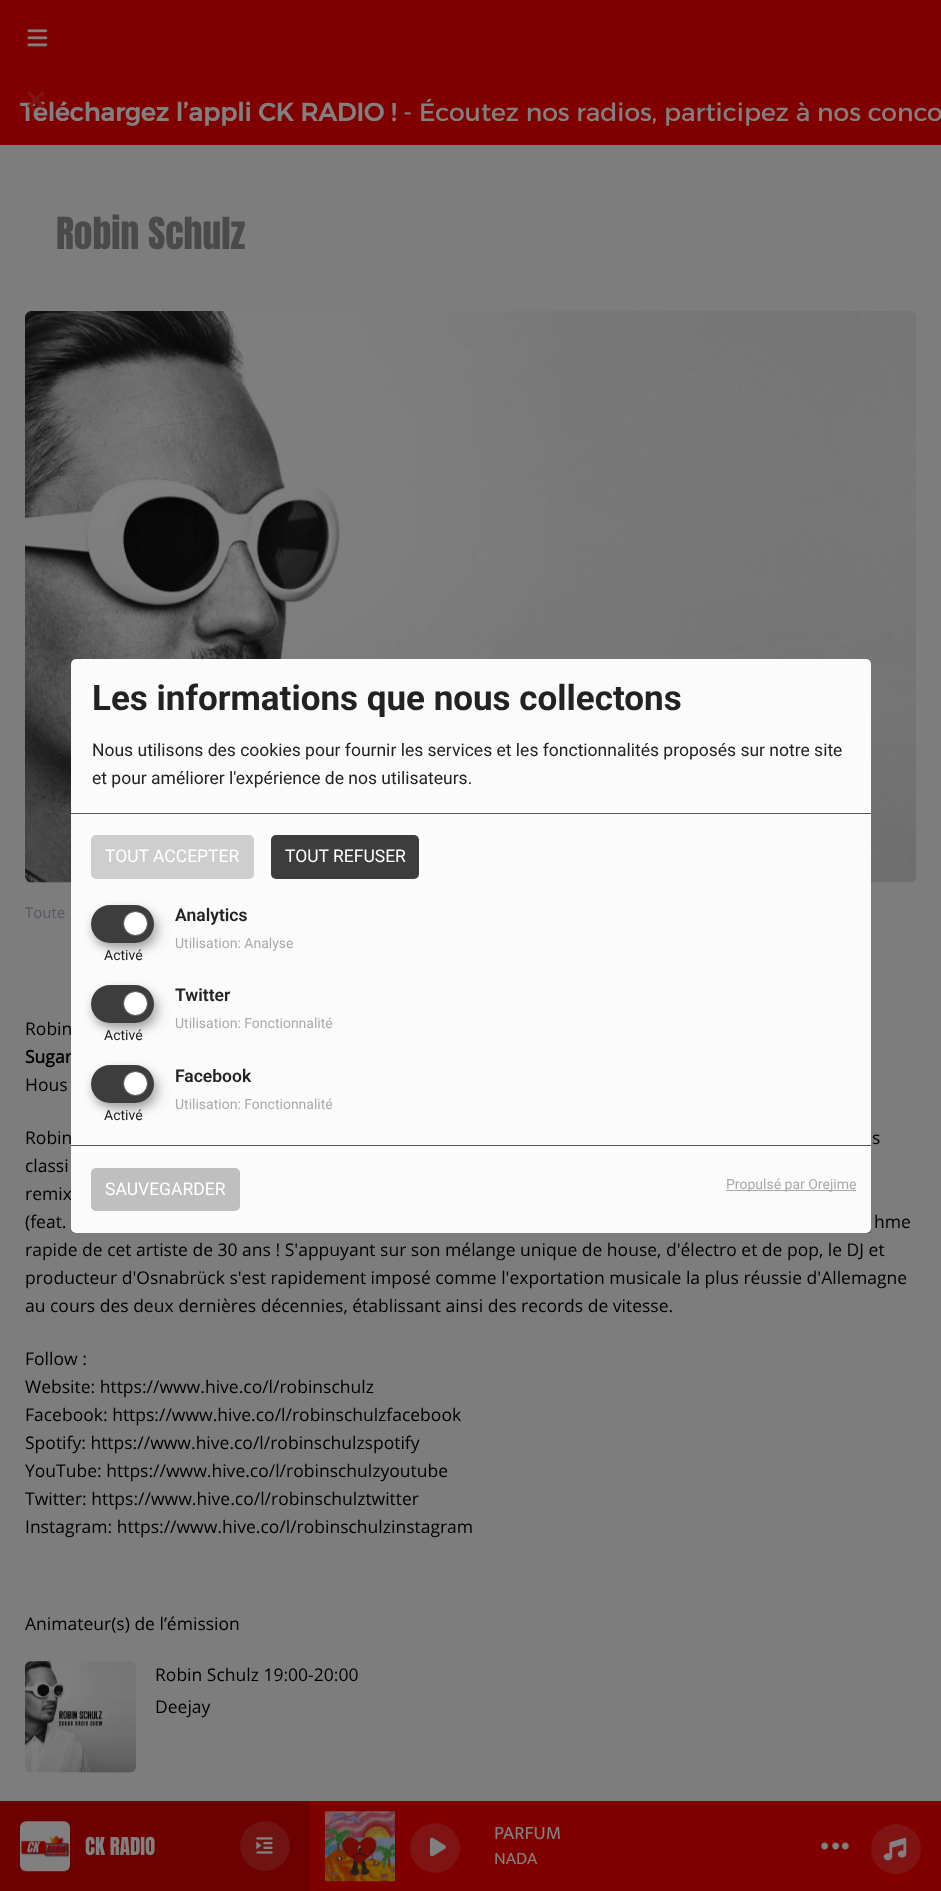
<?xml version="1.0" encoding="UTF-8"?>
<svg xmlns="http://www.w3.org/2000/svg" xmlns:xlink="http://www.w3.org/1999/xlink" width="941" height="1891">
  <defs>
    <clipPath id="clip1"><rect x="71" y="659" width="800" height="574" /></clipPath>
  </defs>
  <rect width="100%" height="100%" fill="#7d7d7d" />
  <rect width="941" height="145" fill="#800000" />
  <image x="27" y="29" width="21" height="18" xlink:href="image1.png" />
  <rect x="310" y="1801" width="631" height="90" fill="#800000" />
  <rect y="1801" width="310" height="90" fill="#6d0000" />
  <image x="20" y="1821" width="50" height="51" xlink:href="image2.png" />
  <circle cx="265" cy="1846" r="25" fill="#701313" />
  <image x="256" y="1837" width="17" height="17" xlink:href="image3.png" />
  <image x="325" y="1811" width="70" height="71" xlink:href="image4.png" />
  <circle cx="435" cy="1848" r="25" fill="#801313" />
  <image x="430" y="1837" width="16" height="20" xlink:href="image5.png" />
  <image x="820" y="1842" width="30" height="8" xlink:href="image6.png" />
  <circle cx="896" cy="1849" r="25" fill="#801313" />
  <image x="883" y="1837" width="24" height="24" xlink:href="image7.png" />
  <image x="25" y="311" width="891" height="572" xlink:href="image8.png" />
  <image x="25" y="1661" width="111" height="112" xlink:href="image9.png" />
  <g clip-path="url(#clip1)">
    <rect x="78" y="665" width="800" height="574" rx="5" fill="#000000" fill-opacity="0.19" filter="blur(6px)" />
    <rect x="71" y="664" width="800" height="574" rx="5" fill="#000000" fill-opacity="0.2" filter="blur(4px)" />
  </g>
  <text x="20" y="121" style="font-family: Alexandria; font-size: 25px; font-weight: bold; fill: #808080">Téléchargez l’appli CK RADIO !</text>
  <text x="25" y="113" style="font-family: Open Sans; font-size: 36px; font-weight: bold; fill: #801414">×</text>
  <text x="403" y="121" style="font-family: Alexandria; font-size: 25px; fill: #808080">- Écoutez nos radios, participez à nos conco</text>
  <text x="85" y="1855" style="font-family: Anton; font-size: 21px; fill: #808080">CK RADIO</text>
  <text x="494" y="1839" style="font-family: Mukta; font-size: 19px; fill: #808080">PARFUM</text>
  <text x="494" y="1864" style="font-family: Mukta; font-size: 17.5px; fill: #808080">NADA</text>
  <text x="56" y="249" style="font-family: Anton; font-size: 37.5px; fill: #4a4a4a">Robin Schulz</text>
  <text x="25" y="918" style="font-family: Open Sans; font-size: 15px; fill: #535961">Toute</text>
  <text x="25" y="1035" style="font-family: Open Sans; font-size: 17.5px; fill: #000000">Robin</text>
  <text x="25" y="1063" style="font-family: Open Sans; font-size: 17.5px; font-weight: bold; fill: #000000">Sugar</text>
  <text x="25" y="1091" style="font-family: Open Sans; font-size: 17.5px; fill: #000000">Hous</text>
  <text x="25" y="1144" style="font-family: Open Sans; font-size: 17.5px; fill: #000000">Robin</text>
  <text x="872" y="1144" style="font-family: Open Sans; font-size: 17.5px; fill: #000000">s</text>
  <text x="25" y="1172" style="font-family: Open Sans; font-size: 17.5px; fill: #000000">classi</text>
  <text x="25" y="1200" style="font-family: Open Sans; font-size: 17.5px; fill: #000000">remix</text>
  <text x="25" y="1228" style="font-family: Open Sans; font-size: 17.5px; fill: #000000">(feat.</text>
  <text x="874" y="1228" style="font-family: Open Sans; font-size: 17.5px; fill: #000000">hme</text>
  <text x="25" y="1256" style="font-family: Open Sans; font-size: 17.5px; fill: #000000">rapide de cet artiste de 30 ans ! S'appuyant sur son mélange unique de house, d'électro et de pop, le DJ et</text>
  <text x="25" y="1284" style="font-family: Open Sans; font-size: 17.5px; fill: #000000">producteur d'Osnabrück s'est rapidement imposé comme l'exportation musicale la plus réussie d'Allemagne</text>
  <text x="25" y="1312" style="font-family: Open Sans; font-size: 17.5px; fill: #000000">au cours des deux dernières décennies, établissant ainsi des records de vitesse.</text>
  <text x="25" y="1365" style="font-family: Open Sans; font-size: 17.5px; fill: #000000">Follow :</text>
  <text x="25" y="1393" style="font-family: Open Sans; font-size: 17.5px; fill: #000000">Website: https://www.hive.co/l/robinschulz</text>
  <text x="25" y="1421" style="font-family: Open Sans; font-size: 17.5px; fill: #000000">Facebook: https://www.hive.co/l/robinschulzfacebook</text>
  <text x="25" y="1449" style="font-family: Open Sans; font-size: 17.5px; fill: #000000">Spotify: https://www.hive.co/l/robinschulzspotify</text>
  <text x="25" y="1477" style="font-family: Open Sans; font-size: 17.5px; fill: #000000">YouTube: https://www.hive.co/l/robinschulzyoutube</text>
  <text x="25" y="1505" style="font-family: Open Sans; font-size: 17.5px; fill: #000000">Twitter: https://www.hive.co/l/robinschulztwitter</text>
  <text x="25" y="1533" style="font-family: Open Sans; font-size: 17.5px; fill: #000000">Instagram: https://www.hive.co/l/robinschulzinstagram</text>
  <text x="25" y="1630" style="font-family: Open Sans; font-size: 17.5px; fill: #000000">Animateur(s) de l’émission</text>
  <text x="155" y="1681" style="font-family: Open Sans; font-size: 17.5px; fill: #000000">Robin Schulz 19:00-20:00</text>
  <text x="155" y="1713" style="font-family: Open Sans; font-size: 17.5px; fill: #000000">Deejay</text>
  <rect x="71" y="659" width="800" height="574" rx="5" fill="#fbfbfb" />
  <rect x="71" y="813" width="800" height="1" fill="#555555" />
  <text x="92" y="710" style="font-family: Roboto; font-size: 35px; font-weight: bold; fill: #222222">Les informations que nous collectons</text>
  <text x="92" y="756" style="font-family: Roboto; font-size: 17.5px; fill: #222222">Nous utilisons des cookies pour fournir les services et les fonctionnalités proposés sur notre site</text>
  <text x="92" y="784" style="font-family: Roboto; font-size: 17.5px; fill: #222222">et pour améliorer l'expérience de nos utilisateurs.</text>
  <rect x="91" y="835" width="163" height="44" rx="5" fill="#cecece" />
  <text x="105" y="862" style="font-family: Roboto; font-size: 17.5px; fill: #ffffff">TOUT ACCEPTER</text>
  <rect x="271" y="835" width="148" height="44" rx="5" fill="#3e3d3d" />
  <text x="285" y="862" style="font-family: Roboto; font-size: 17.5px; fill: #ffffff">TOUT REFUSER</text>
  <text x="175" y="921" style="font-family: Roboto; font-size: 17.5px; font-weight: 600; fill: #222222">Analytics</text>
  <rect x="98" y="911" width="62" height="38" rx="19" fill="#000000" fill-opacity="0.19" filter="blur(6px)" />
  <rect x="91" y="910" width="63" height="38" rx="19" fill="#000000" fill-opacity="0.2" filter="blur(4px)" />
  <rect x="91" y="905" width="63" height="38" rx="19" fill="#3e3d3d" />
  <circle cx="135.5" cy="923.5" r="12" fill="#ffffff" stroke="#555555" />
  <text x="104" y="960" style="font-family: Roboto; font-size: 14px; fill: #222222">Activé</text>
  <text x="175" y="948" style="font-family: Roboto; font-size: 14px; fill: #aaaaaa">Utilisation: Analyse</text>
  <text x="175" y="1001" style="font-family: Roboto; font-size: 17.5px; font-weight: 600; fill: #222222">Twitter</text>
  <rect x="98" y="991" width="62" height="38" rx="19" fill="#000000" fill-opacity="0.19" filter="blur(6px)" />
  <rect x="91" y="990" width="63" height="38" rx="19" fill="#000000" fill-opacity="0.2" filter="blur(4px)" />
  <rect x="91" y="985" width="63" height="38" rx="19" fill="#3e3d3d" />
  <circle cx="135.5" cy="1003.5" r="12" fill="#ffffff" stroke="#555555" />
  <text x="104" y="1040" style="font-family: Roboto; font-size: 14px; fill: #222222">Activé</text>
  <text x="175" y="1028" style="font-family: Roboto; font-size: 14px; fill: #aaaaaa">Utilisation: Fonctionnalité</text>
  <text x="175" y="1082" style="font-family: Roboto; font-size: 17.5px; font-weight: 600; fill: #222222">Facebook</text>
  <rect x="98" y="1071" width="62" height="38" rx="19" fill="#000000" fill-opacity="0.19" filter="blur(6px)" />
  <rect x="91" y="1070" width="63" height="38" rx="19" fill="#000000" fill-opacity="0.2" filter="blur(4px)" />
  <rect x="91" y="1065" width="63" height="38" rx="19" fill="#3e3d3d" />
  <circle cx="135.5" cy="1083.5" r="12" fill="#ffffff" stroke="#555555" />
  <text x="104" y="1120" style="font-family: Roboto; font-size: 14px; fill: #222222">Activé</text>
  <text x="175" y="1109" style="font-family: Roboto; font-size: 14px; fill: #aaaaaa">Utilisation: Fonctionnalité</text>
  <rect x="71" y="1145" width="800" height="1" fill="#555555" />
  <rect x="91" y="1168" width="149" height="43" rx="5" fill="#bfbfbf" />
  <text x="105" y="1195" style="font-family: Roboto; font-size: 17.5px; fill: #ffffff">SAUVEGARDER</text>
  <rect x="726" y="1190" width="130" height="1" fill="#aaaaaa" />
  <text x="726" y="1189" style="font-family: Roboto; font-size: 14px; fill: #aaaaaa">Propulsé par Orejime</text>
</svg>
